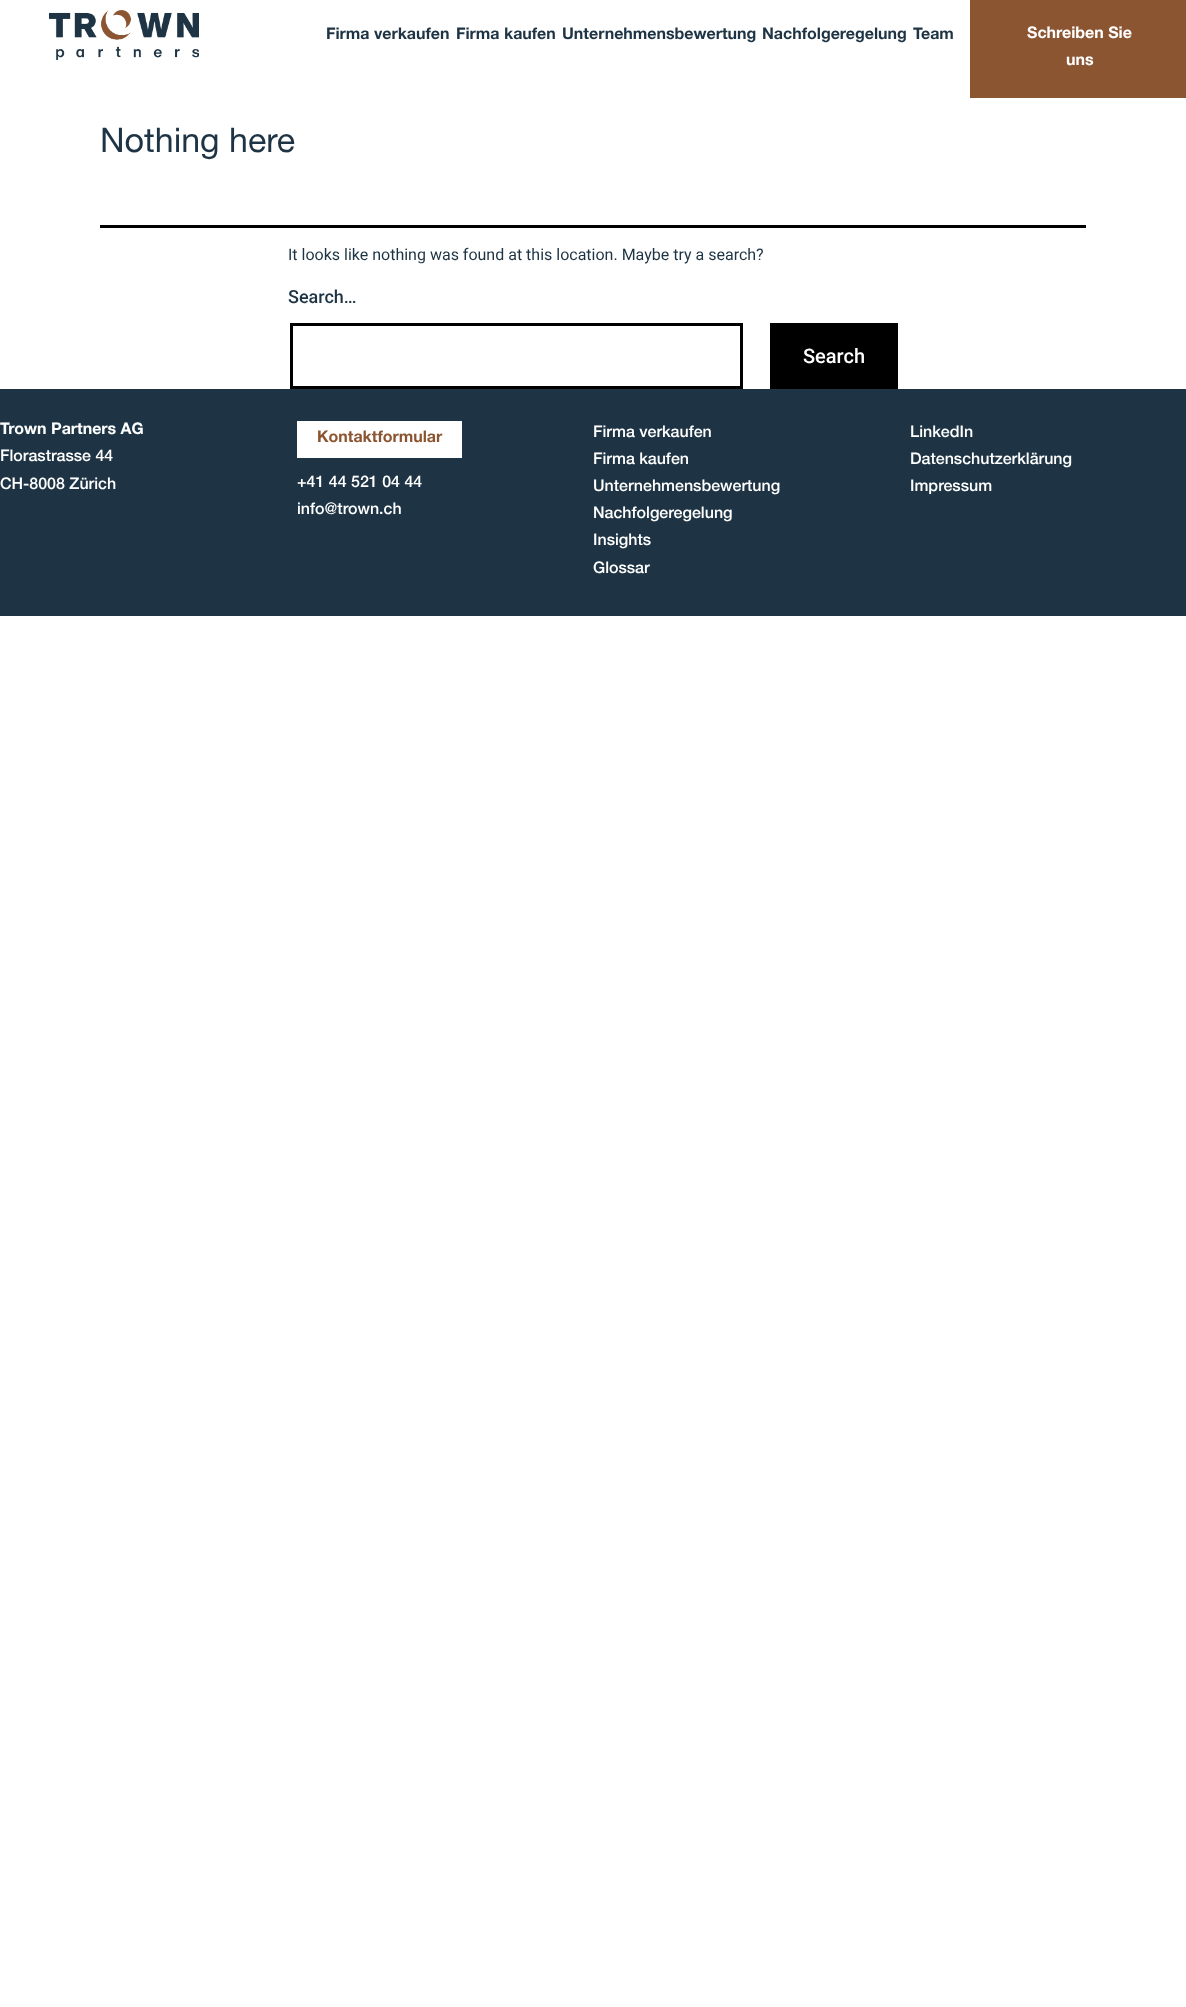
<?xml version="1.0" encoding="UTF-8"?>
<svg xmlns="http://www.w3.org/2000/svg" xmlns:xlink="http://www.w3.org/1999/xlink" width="1186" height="2007">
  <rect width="100%" height="100%" fill="#ffffff" />
  <image x="49" y="10" width="150" height="50" xlink:href="image1.png" />
  <rect x="970" width="216" height="98" fill="#8c5531" />
  <rect x="100" y="225" width="986" height="3" fill="#000000" />
  <rect x="291.5" y="324.5" width="450" height="63" fill="none" stroke="#000000" stroke-width="3" />
  <rect x="770" y="323" width="128" height="66" fill="#000000" />
  <rect y="389" width="1186" height="227" fill="#1e3444" />
  <rect x="297" y="421" width="165" height="37" fill="#ffffff" />
  <text x="326" y="39" style="font-family: Helvetica Neue; font-size: 16px; font-weight: bold; fill: #1e3444">Firma verkaufen</text>
  <text x="456" y="39" style="font-family: Helvetica Neue; font-size: 16px; font-weight: bold; fill: #1e3444">Firma kaufen</text>
  <text x="562" y="39" style="font-family: Helvetica Neue; font-size: 16px; font-weight: bold; fill: #1e3444">Unternehmensbewertung</text>
  <text x="762" y="39" style="font-family: Helvetica Neue; font-size: 16px; font-weight: bold; fill: #1e3444">Nachfolgeregelung</text>
  <text x="913" y="39" style="font-family: Helvetica Neue; font-size: 16px; font-weight: bold; fill: #1e3444">Team</text>
  <text x="1027" y="38" style="font-family: Helvetica Neue; font-size: 16px; font-weight: bold; fill: #ffffff">Schreiben Sie</text>
  <text x="1066" y="65" style="font-family: Helvetica Neue; font-size: 16px; font-weight: bold; fill: #ffffff">uns</text>
  <text x="100" y="152" style="font-family: Helvetica Neue; font-size: 34px; fill: #1e3444">Nothing here</text>
  <text x="288" y="260" style="font-family: Roboto; font-size: 16px; fill: #1e3444">It looks like nothing was found at this location. Maybe try a search?</text>
  <text x="288" y="303" style="font-family: Roboto; font-size: 18px; font-weight: 500; fill: #1e3444">Search…</text>
  <text x="803" y="363" style="font-family: Roboto; font-size: 20px; font-weight: 500; fill: #ffffff">Search</text>
  <text x="0" y="434" style="font-family: Helvetica Neue; font-size: 16px; font-weight: bold; fill: #ffffff">Trown Partners AG</text>
  <text x="0" y="461" style="font-family: Helvetica Neue; font-size: 16px; font-weight: 500; fill: #ffffff">Florastrasse 44</text>
  <text x="0" y="489" style="font-family: Helvetica Neue; font-size: 16px; font-weight: 500; fill: #ffffff">CH-8008 Zürich</text>
  <text x="317" y="442" style="font-family: Helvetica Neue; font-size: 16px; font-weight: bold; fill: #8c5531">Kontaktformular</text>
  <text x="297" y="487" style="font-family: Helvetica Neue; font-size: 16px; font-weight: 500; fill: #ffffff">+41 44 521 04 44</text>
  <text x="297" y="514" style="font-family: Helvetica Neue; font-size: 16px; font-weight: 500; fill: #ffffff">info@trown.ch</text>
  <text x="593" y="437" style="font-family: Helvetica Neue; font-size: 16px; font-weight: 500; fill: #ffffff">Firma verkaufen</text>
  <text x="593" y="464" style="font-family: Helvetica Neue; font-size: 16px; font-weight: 500; fill: #ffffff">Firma kaufen</text>
  <text x="593" y="491" style="font-family: Helvetica Neue; font-size: 16px; font-weight: 500; fill: #ffffff">Unternehmensbewertung</text>
  <text x="593" y="518" style="font-family: Helvetica Neue; font-size: 16px; font-weight: 500; fill: #ffffff">Nachfolgeregelung</text>
  <text x="593" y="545" style="font-family: Helvetica Neue; font-size: 16px; font-weight: 500; fill: #ffffff">Insights</text>
  <text x="593" y="573" style="font-family: Helvetica Neue; font-size: 16px; font-weight: 500; fill: #ffffff">Glossar</text>
  <text x="910" y="437" style="font-family: Helvetica Neue; font-size: 16px; font-weight: 500; fill: #ffffff">LinkedIn</text>
  <text x="910" y="464" style="font-family: Helvetica Neue; font-size: 16px; font-weight: 500; fill: #ffffff">Datenschutzerklärung</text>
  <text x="910" y="491" style="font-family: Helvetica Neue; font-size: 16px; font-weight: 500; fill: #ffffff">Impressum</text>
</svg>
